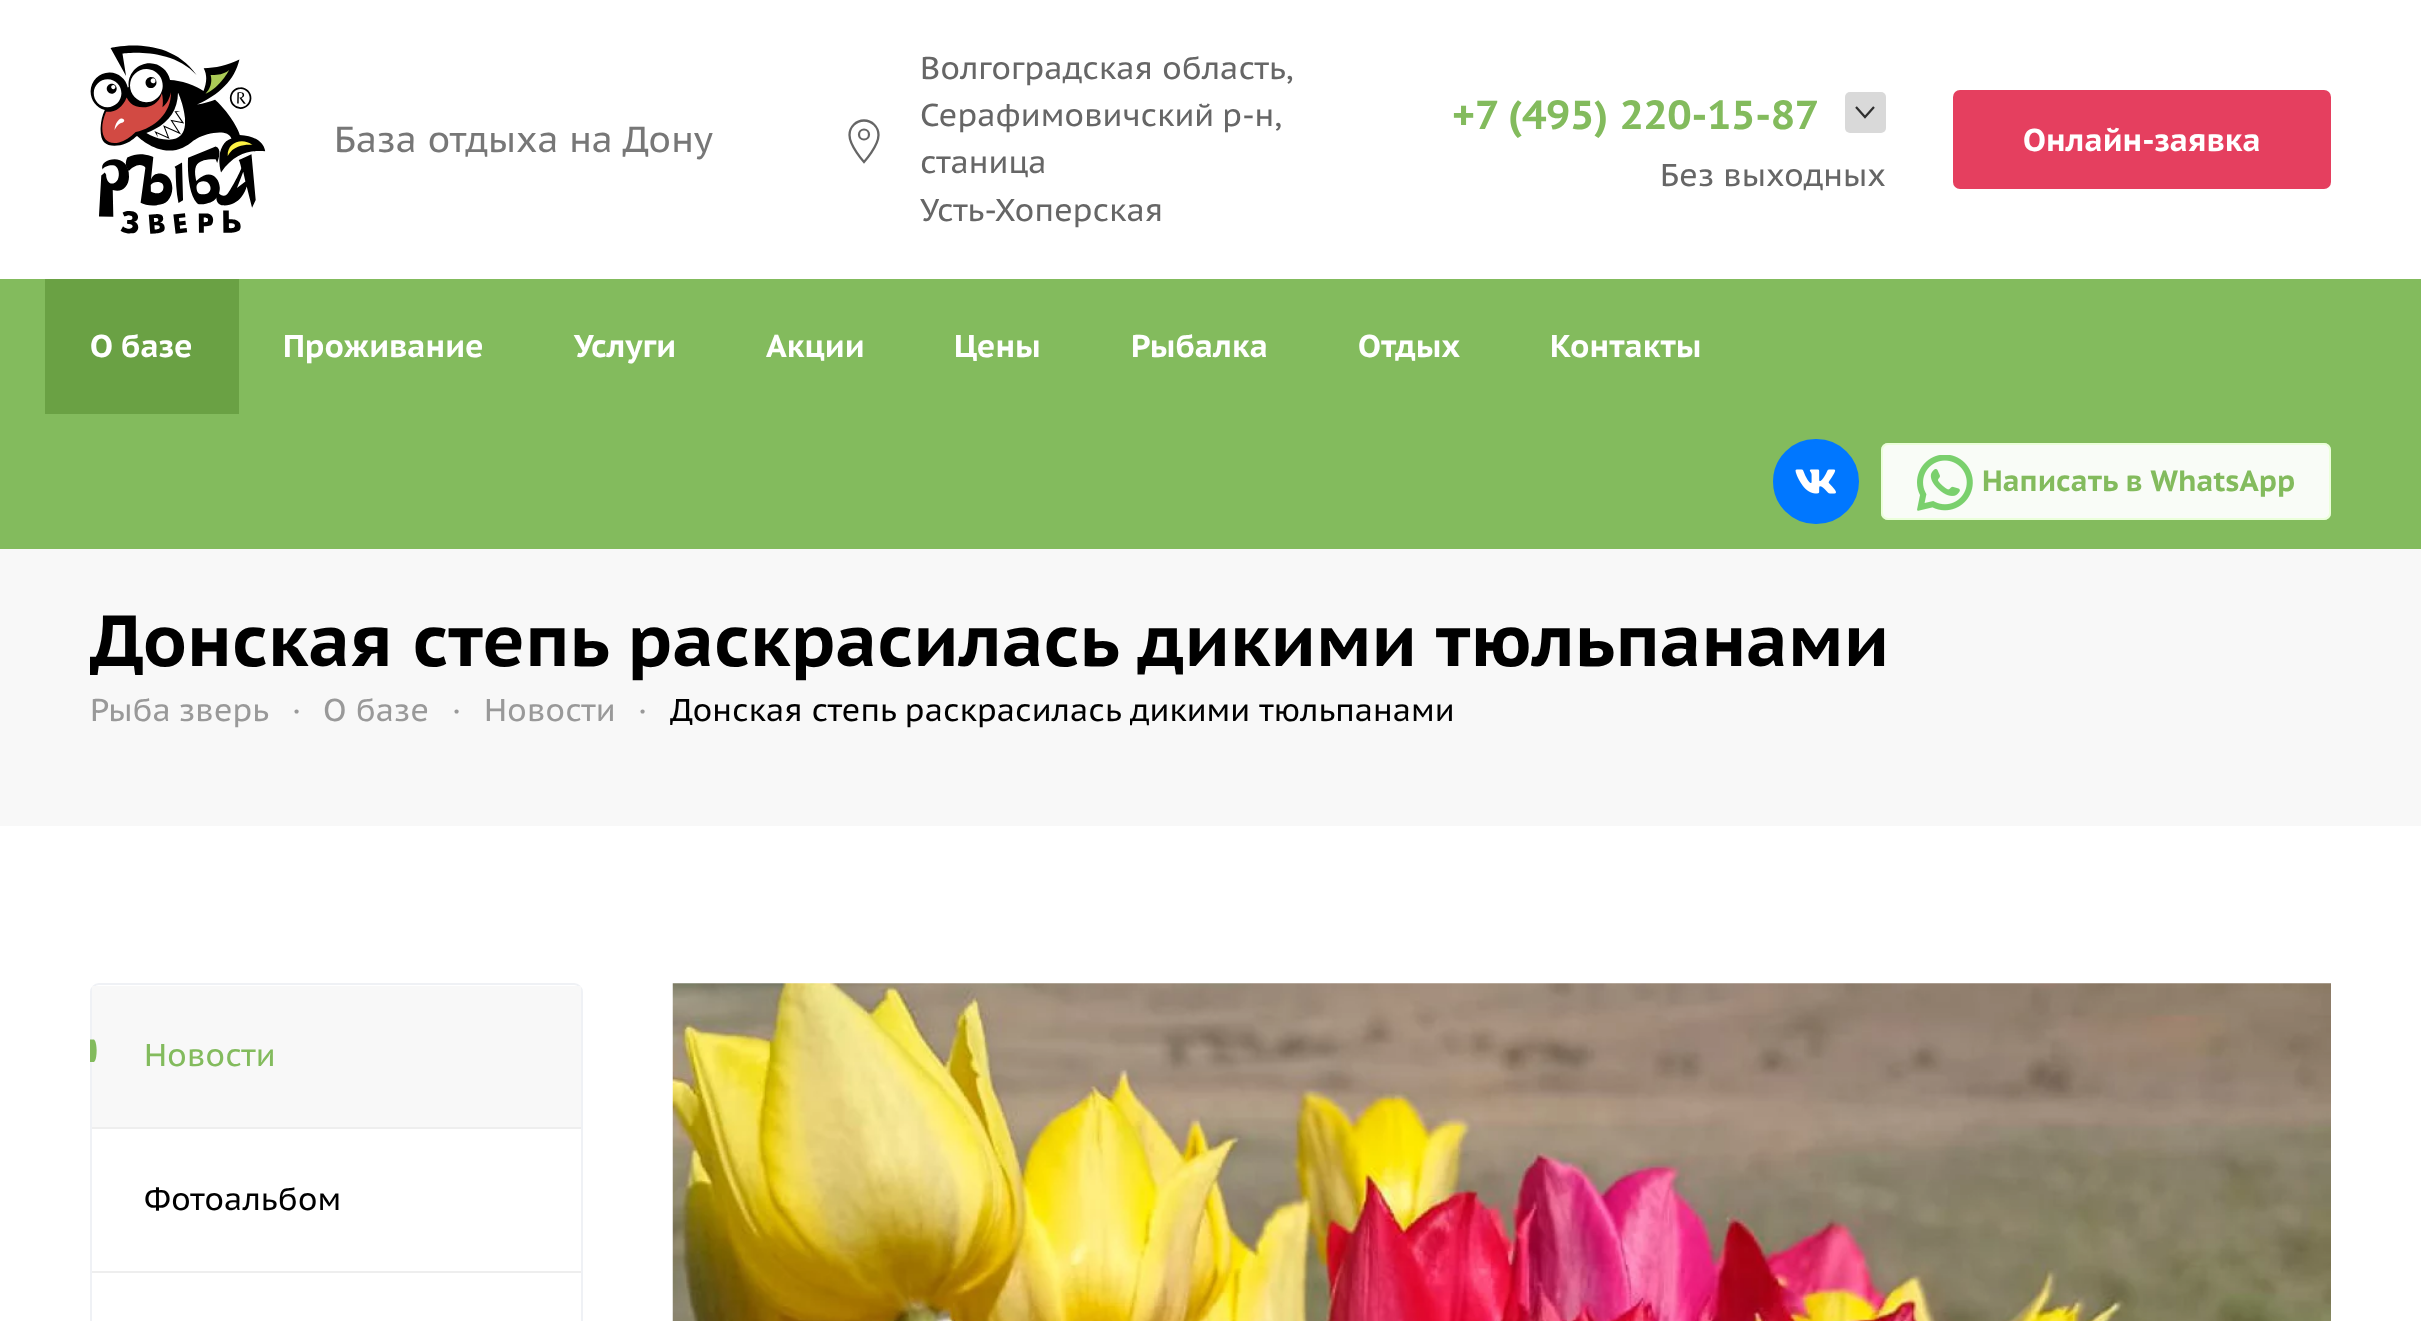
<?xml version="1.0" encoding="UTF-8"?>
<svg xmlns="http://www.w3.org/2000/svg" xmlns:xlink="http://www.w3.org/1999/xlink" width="2421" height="1321">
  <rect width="100%" height="100%" fill="#ffffff" />
  <image x="90" y="45" width="176" height="189" xlink:href="image1.png" />
  <path d="M 864 120.5 c -8 0 -14.5 6.5 -14.5 14.5 c 0 11 14.5 27 14.5 27 c 0 0 14.5 -16 14.5 -27 c 0 -8 -6.5 -14.5 -14.5 -14.5 z" fill="none" stroke="#666666" stroke-width="2.3" />
  <circle cx="864" cy="134.5" r="5" fill="none" stroke="#666666" stroke-width="2.2" />
  <rect x="1845" y="92" width="41" height="41" rx="5" fill="#d9d9d9" />
  <path d="M 1856 107 l 9 10 l 9 -10" fill="none" stroke="#2f2f2f" stroke-width="2.2" />
  <rect x="1953" y="90" width="378" height="99" rx="7" fill="#e53f5f" />
  <rect y="279" width="2421" height="270" fill="#83bb5d" />
  <rect x="45" y="279" width="194" height="135" fill="#6aa144" />
  <rect x="1774" y="440" width="84" height="83" rx="41.5" fill="#0077ff" stroke="#0077ff" stroke-width="2" />
  <image x="1795" y="469" width="41" height="25" xlink:href="image2.png" />
  <rect x="1881" y="443" width="450" height="77" rx="7" fill="#f9fcf7" />
  <rect x="1882" y="444" width="448" height="75" rx="6" fill="none" stroke="#e6ffd1" stroke-opacity="0.76" stroke-width="2" />
  <image x="1917" y="455" width="56" height="56" xlink:href="image3.png" />
  <rect y="549" width="2421" height="277" fill="#f8f8f8" />
  <rect x="91" y="984" width="491" height="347" rx="8" fill="none" stroke="#eff1f5" stroke-width="2" />
  <rect x="92" y="986" width="489" height="141" fill="#f8f8f8" />
  <path d="M 90 1039.5 h 4 c 3.5 2.5 3.5 20 0 22.5 h -4 z" fill="#83bb5d" />
  <rect x="92" y="1127" width="489" height="2" fill="#eeeeee" />
  <rect x="92" y="1271" width="489" height="2" fill="#eeeeee" />
  <image x="672" y="983" width="1659" height="338" xlink:href="image4.png" />
  <text x="334" y="152" style="font-family: PT Sans Caption; font-size: 36.25px; fill: #777777">База отдыха на Дону</text>
  <text x="920" y="79" style="font-family: PT Sans Caption; font-size: 31.5px; fill: #666666">Волгоградская область,</text>
  <text x="920" y="126" word-spacing="-1" style="font-family: PT Sans Caption; font-size: 31.5px; fill: #666666">Серафимовичский р-н,</text>
  <text x="920" y="173" style="font-family: PT Sans Caption; font-size: 31.5px; fill: #666666">станица</text>
  <text x="920" y="221" style="font-family: PT Sans Caption; font-size: 31.5px; fill: #666666">Усть-Хоперская</text>
  <text x="1452" y="129" style="font-family: PT Sans Caption; font-size: 40.5px; font-weight: bold; fill: #83bb5d">+7 (495) 220-15-87</text>
  <text x="1660" y="186" style="font-family: PT Sans Caption; font-size: 31.5px; fill: #666666">Без выходных</text>
  <text x="2023" y="151" style="font-family: PT Sans Caption; font-size: 31.5px; font-weight: bold; fill: #ffffff">Онлайн-заявка</text>
  <text x="90" y="357" style="font-family: PT Sans Caption; font-size: 31.5px; font-weight: bold; fill: #ffffff">О базе</text>
  <text x="283" y="357" style="font-family: PT Sans Caption; font-size: 31.5px; font-weight: bold; fill: #ffffff">Проживание</text>
  <text x="574" y="357" style="font-family: PT Sans Caption; font-size: 31.5px; font-weight: bold; fill: #ffffff">Услуги</text>
  <text x="766" y="357" style="font-family: PT Sans Caption; font-size: 31.5px; font-weight: bold; fill: #ffffff">Акции</text>
  <text x="954" y="357" style="font-family: PT Sans Caption; font-size: 31.5px; font-weight: bold; fill: #ffffff">Цены</text>
  <text x="1131" y="357" style="font-family: PT Sans Caption; font-size: 31.5px; font-weight: bold; fill: #ffffff">Рыбалка</text>
  <text x="1358" y="357" style="font-family: PT Sans Caption; font-size: 31.5px; font-weight: bold; fill: #ffffff">Отдых</text>
  <text x="1550" y="357" style="font-family: PT Sans Caption; font-size: 31.5px; font-weight: bold; fill: #ffffff">Контакты</text>
  <text x="1982" y="491" style="font-family: PT Sans Caption; font-size: 29.25px; font-weight: bold; fill: #83bb5d">Написать в WhatsApp</text>
  <text x="90" y="666" style="font-family: PT Sans Caption; font-size: 72px; font-weight: bold; fill: #000000">Донская степь раскрасилась дикими тюльпанами</text>
  <text x="90" y="721" word-spacing="-1" style="font-family: PT Sans Caption; font-size: 31.5px; fill: #999999">Рыба зверь</text>
  <text x="292" y="721" style="font-family: PT Sans Caption; font-size: 31.5px; fill: #999999">·</text>
  <text x="323" y="721" style="font-family: PT Sans Caption; font-size: 31.5px; fill: #999999">О базе</text>
  <text x="452" y="721" style="font-family: PT Sans Caption; font-size: 31.5px; fill: #999999">·</text>
  <text x="484" y="721" style="font-family: PT Sans Caption; font-size: 31.5px; fill: #999999">Новости</text>
  <text x="638" y="721" style="font-family: PT Sans Caption; font-size: 31.5px; fill: #999999">·</text>
  <text x="670" y="721" style="font-family: PT Sans Caption; font-size: 31.5px; fill: #000000">Донская степь раскрасилась дикими тюльпанами</text>
  <text x="144" y="1066" style="font-family: PT Sans Caption; font-size: 31.5px; fill: #83bb5d">Новости</text>
  <text x="144" y="1210" style="font-family: PT Sans Caption; font-size: 31.5px; fill: #000000">Фотоальбом</text>
</svg>
